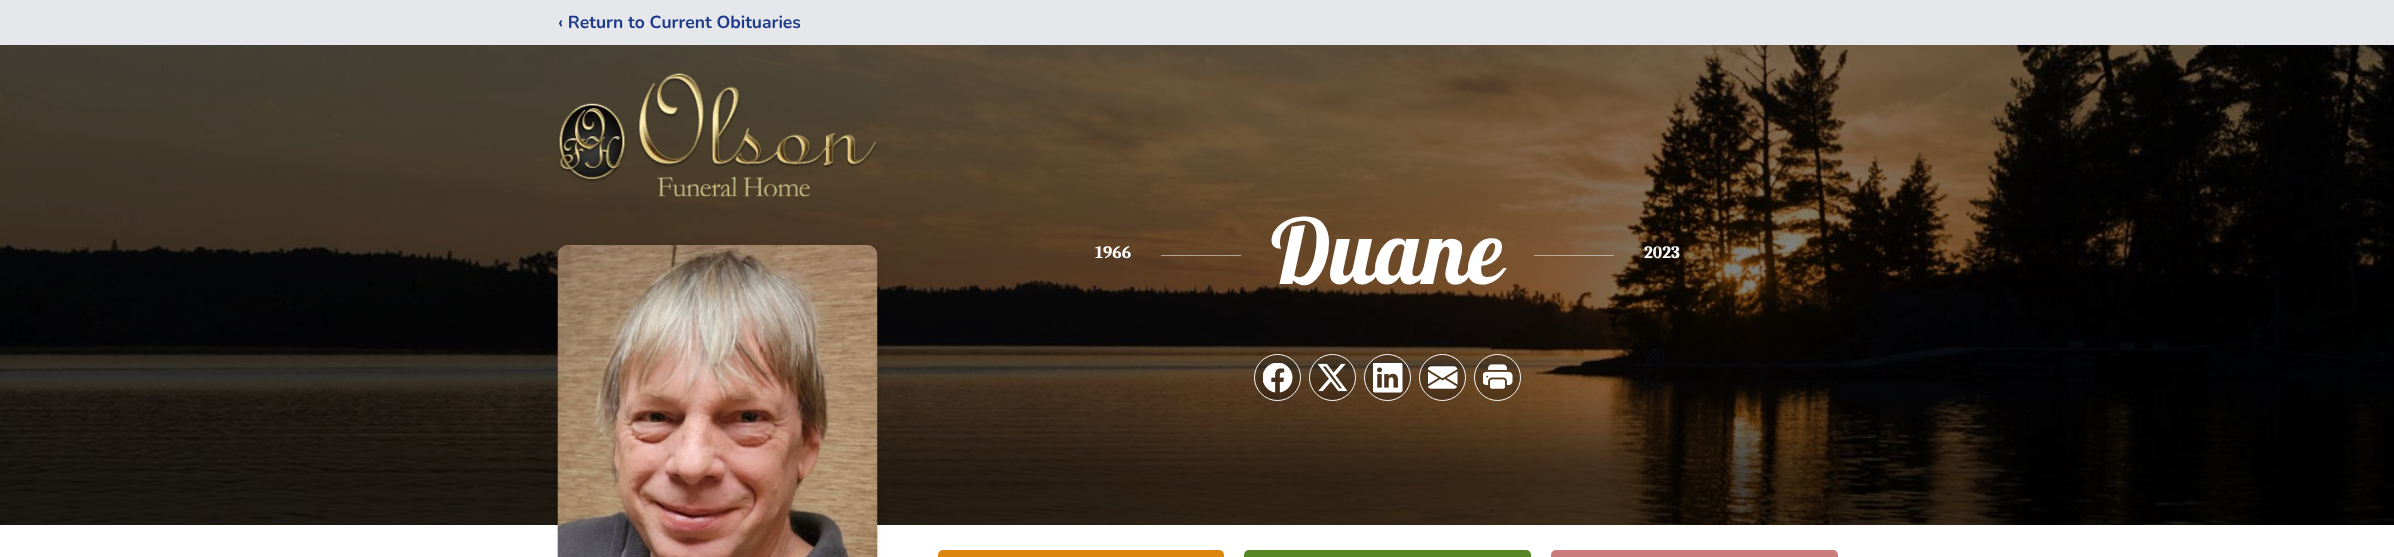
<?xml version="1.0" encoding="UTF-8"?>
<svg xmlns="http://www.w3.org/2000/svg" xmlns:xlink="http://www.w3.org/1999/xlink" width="2394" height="557">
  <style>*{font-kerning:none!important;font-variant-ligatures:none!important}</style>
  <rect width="100%" height="100%" fill="#ffffff" />
  <rect width="2394" height="45" fill="#e5e7eb" />
  <image x="0" y="45" width="2394" height="480" xlink:href="image1.png" />
  <image x="558" y="73" width="319" height="124" xlink:href="image2.png" />
  <rect x="558" y="246" width="320" height="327" rx="10" fill="#000000" fill-opacity="0.1" filter="blur(2px)" />
  <image x="557" y="245" width="321" height="312" xlink:href="image3.png" />
  <rect x="1161" y="255" width="80" height="1" fill="#ffffff" fill-opacity="0.5" />
  <rect x="1534" y="255" width="80" height="1" fill="#ffffff" fill-opacity="0.5" />
  <circle cx="1277.5" cy="377.5" r="23" fill="none" stroke="#ffffff" />
  <circle cx="1277.5" cy="377.5" r="22.5" fill="#000000" fill-opacity="0.2" />
  <image x="1263" y="363" width="30" height="30" xlink:href="image4.png" />
  <circle cx="1332.5" cy="377.5" r="23" fill="none" stroke="#ffffff" />
  <circle cx="1332.5" cy="377.5" r="22.5" fill="#000000" fill-opacity="0.2" />
  <image x="1318" y="363" width="30" height="29" xlink:href="image5.png" />
  <circle cx="1387.5" cy="377.5" r="23" fill="none" stroke="#ffffff" />
  <circle cx="1387.5" cy="377.5" r="22.5" fill="#000000" fill-opacity="0.2" />
  <image x="1373" y="363" width="30" height="30" xlink:href="image6.png" />
  <circle cx="1442.5" cy="377.5" r="23" fill="none" stroke="#ffffff" />
  <circle cx="1442.5" cy="377.5" r="22.5" fill="#000000" fill-opacity="0.2" />
  <image x="1428" y="366" width="30" height="23" xlink:href="image7.png" />
  <circle cx="1497.5" cy="377.5" r="23" fill="none" stroke="#ffffff" />
  <circle cx="1497.5" cy="377.5" r="22.5" fill="#000000" fill-opacity="0.2" />
  <image x="1483" y="364" width="30" height="25" xlink:href="image8.png" />
  <rect x="938" y="550" width="286" height="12" rx="5" fill="#dc860d" />
  <rect x="1244" y="550" width="287" height="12" rx="5" fill="#588624" />
  <rect x="1551" y="550" width="287" height="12" rx="5" fill="#cb7c7c" />
  <text x="558" y="28" style="font-family: Nunito; font-size: 17.5px; font-weight: bold; fill: #1e3a8a">‹ Return to Current Obituaries</text>
  <text x="1095" y="258" style="font-family: Caladea; font-size: 17.5px; font-weight: bold; fill: #ffffff">1966</text>
  <text x="1271" y="284" style="font-family: Lobster; font-size: 90px; fill: #ffffff">Duane</text>
  <text x="1644" y="258" style="font-family: Caladea; font-size: 17.5px; font-weight: bold; fill: #ffffff">2023</text>
</svg>
